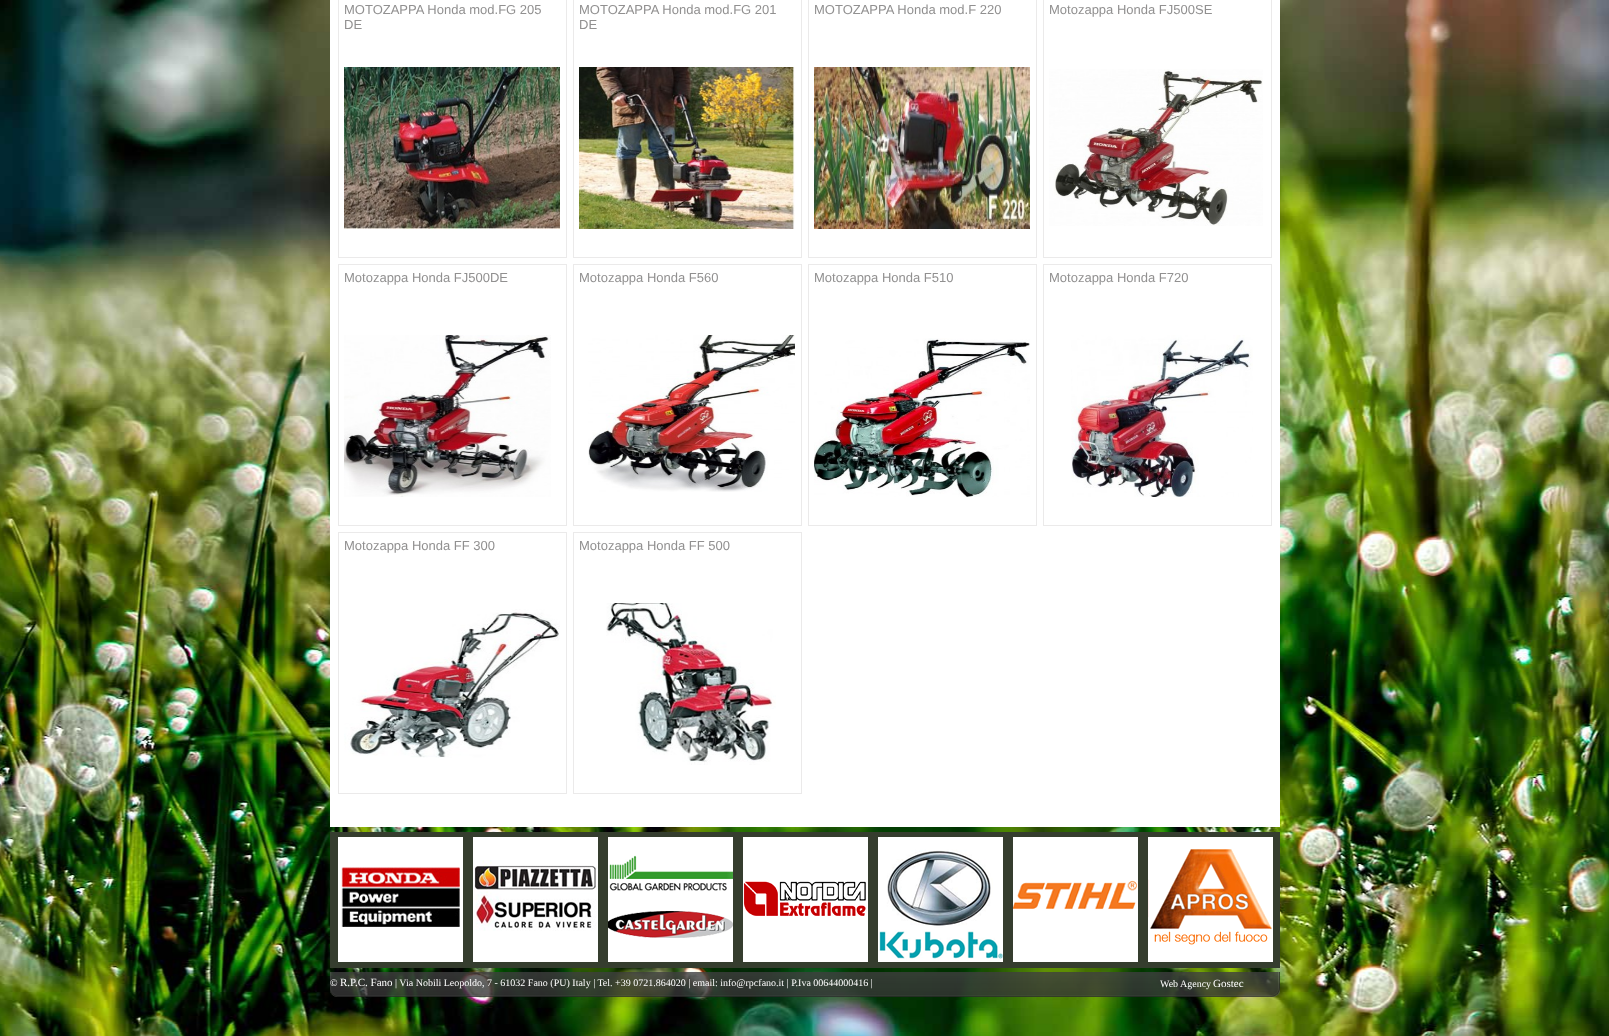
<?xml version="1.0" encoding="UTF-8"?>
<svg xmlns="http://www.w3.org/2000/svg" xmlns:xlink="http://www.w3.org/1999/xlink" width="1609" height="1036">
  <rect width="100%" height="100%" fill="#ffffff" />
  <image x="0" y="0" width="1609" height="1036" xlink:href="image1.png" />
  <rect x="330" width="950" height="827" fill="#ffffff" />
  <rect x="338.5" y="-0.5" width="228" height="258" fill="none" stroke="#ebeaea" />
  <image x="344" y="67" width="216" height="162" xlink:href="image2.png" />
  <rect x="573.5" y="-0.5" width="228" height="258" fill="none" stroke="#ebeaea" />
  <image x="579" y="67" width="216" height="162" xlink:href="image3.png" />
  <rect x="808.5" y="-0.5" width="228" height="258" fill="none" stroke="#ebeaea" />
  <image x="814" y="67" width="216" height="162" xlink:href="image4.png" />
  <rect x="1043.5" y="-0.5" width="228" height="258" fill="none" stroke="#ebeaea" />
  <image x="1049" y="69" width="214" height="157" xlink:href="image5.png" />
  <rect x="338.5" y="264.5" width="228" height="261" fill="none" stroke="#ebeaea" />
  <image x="344" y="335" width="207" height="162" xlink:href="image6.png" />
  <rect x="573.5" y="264.5" width="228" height="261" fill="none" stroke="#ebeaea" />
  <image x="588" y="335" width="207" height="157" xlink:href="image7.png" />
  <rect x="808.5" y="264.5" width="228" height="261" fill="none" stroke="#ebeaea" />
  <image x="814" y="338" width="216" height="159" xlink:href="image8.png" />
  <rect x="1043.5" y="264.5" width="228" height="261" fill="none" stroke="#ebeaea" />
  <image x="1071" y="335" width="182" height="162" xlink:href="image9.png" />
  <rect x="338.5" y="532.5" width="228" height="261" fill="none" stroke="#ebeaea" />
  <image x="344" y="609" width="216" height="149" xlink:href="image10.png" />
  <rect x="573.5" y="532.5" width="228" height="261" fill="none" stroke="#ebeaea" />
  <image x="606" y="603" width="170" height="162" xlink:href="image11.png" />
  <rect x="330" y="832" width="950" height="136" fill="#353d2e" />
  <image x="338" y="837" width="125" height="125" xlink:href="image12.png" />
  <image x="473" y="837" width="125" height="125" xlink:href="image13.png" />
  <image x="608" y="837" width="125" height="125" xlink:href="image14.png" />
  <image x="743" y="837" width="125" height="125" xlink:href="image15.png" />
  <image x="878" y="837" width="125" height="125" xlink:href="image16.png" />
  <image x="1013" y="837" width="125" height="125" xlink:href="image17.png" />
  <image x="1148" y="837" width="125" height="125" xlink:href="image18.png" />
  <image x="330" y="972" width="950" height="25" xlink:href="image19.png" />
  <text x="344" y="14" style="font-family: Liberation Sans; font-size: 13px; fill: #919090">MOTOZAPPA Honda mod.FG 205</text>
  <text x="344" y="29" style="font-family: Liberation Sans; font-size: 13px; fill: #919090">DE</text>
  <text x="579" y="14" style="font-family: Liberation Sans; font-size: 13px; fill: #919090">MOTOZAPPA Honda mod.FG 201</text>
  <text x="579" y="29" style="font-family: Liberation Sans; font-size: 13px; fill: #919090">DE</text>
  <text x="814" y="14" style="font-family: Liberation Sans; font-size: 13px; fill: #919090">MOTOZAPPA Honda mod.F 220</text>
  <text x="1049" y="14" style="font-family: Liberation Sans; font-size: 13px; fill: #919090">Motozappa Honda FJ500SE</text>
  <text x="344" y="282" style="font-family: Liberation Sans; font-size: 13px; fill: #919090">Motozappa Honda FJ500DE</text>
  <text x="579" y="282" style="font-family: Liberation Sans; font-size: 13px; fill: #919090">Motozappa Honda F560</text>
  <text x="814" y="282" style="font-family: Liberation Sans; font-size: 13px; fill: #919090">Motozappa Honda F510</text>
  <text x="1049" y="282" style="font-family: Liberation Sans; font-size: 13px; fill: #919090">Motozappa Honda F720</text>
  <text x="344" y="550" style="font-family: Liberation Sans; font-size: 13px; fill: #919090">Motozappa Honda FF 300</text>
  <text x="579" y="550" style="font-family: Liberation Sans; font-size: 13px; fill: #919090">Motozappa Honda FF 500</text>
  <text x="330" y="986" style="font-family: Liberation Serif; font-size: 10px; fill: #ffffff">©</text>
  <text x="340" y="986" style="font-family: Liberation Serif; font-size: 11px; fill: #ffffff">R.P.C. Fano</text>
  <text x="395" y="986" style="font-family: Liberation Serif; font-size: 10px; fill: #ffffff">| Via Nobili Leopoldo, 7 - 61032 Fano (PU) Italy | Tel. +39 0721.864020 | email: info@rpcfano.it | P.Iva 00644000416 |</text>
  <text x="1160" y="987" style="font-family: Liberation Serif; font-size: 10px; fill: #ffffff">Web Agency</text>
  <text x="1213" y="987" style="font-family: Liberation Serif; font-size: 11px; fill: #ffffff">Gostec</text>
</svg>
